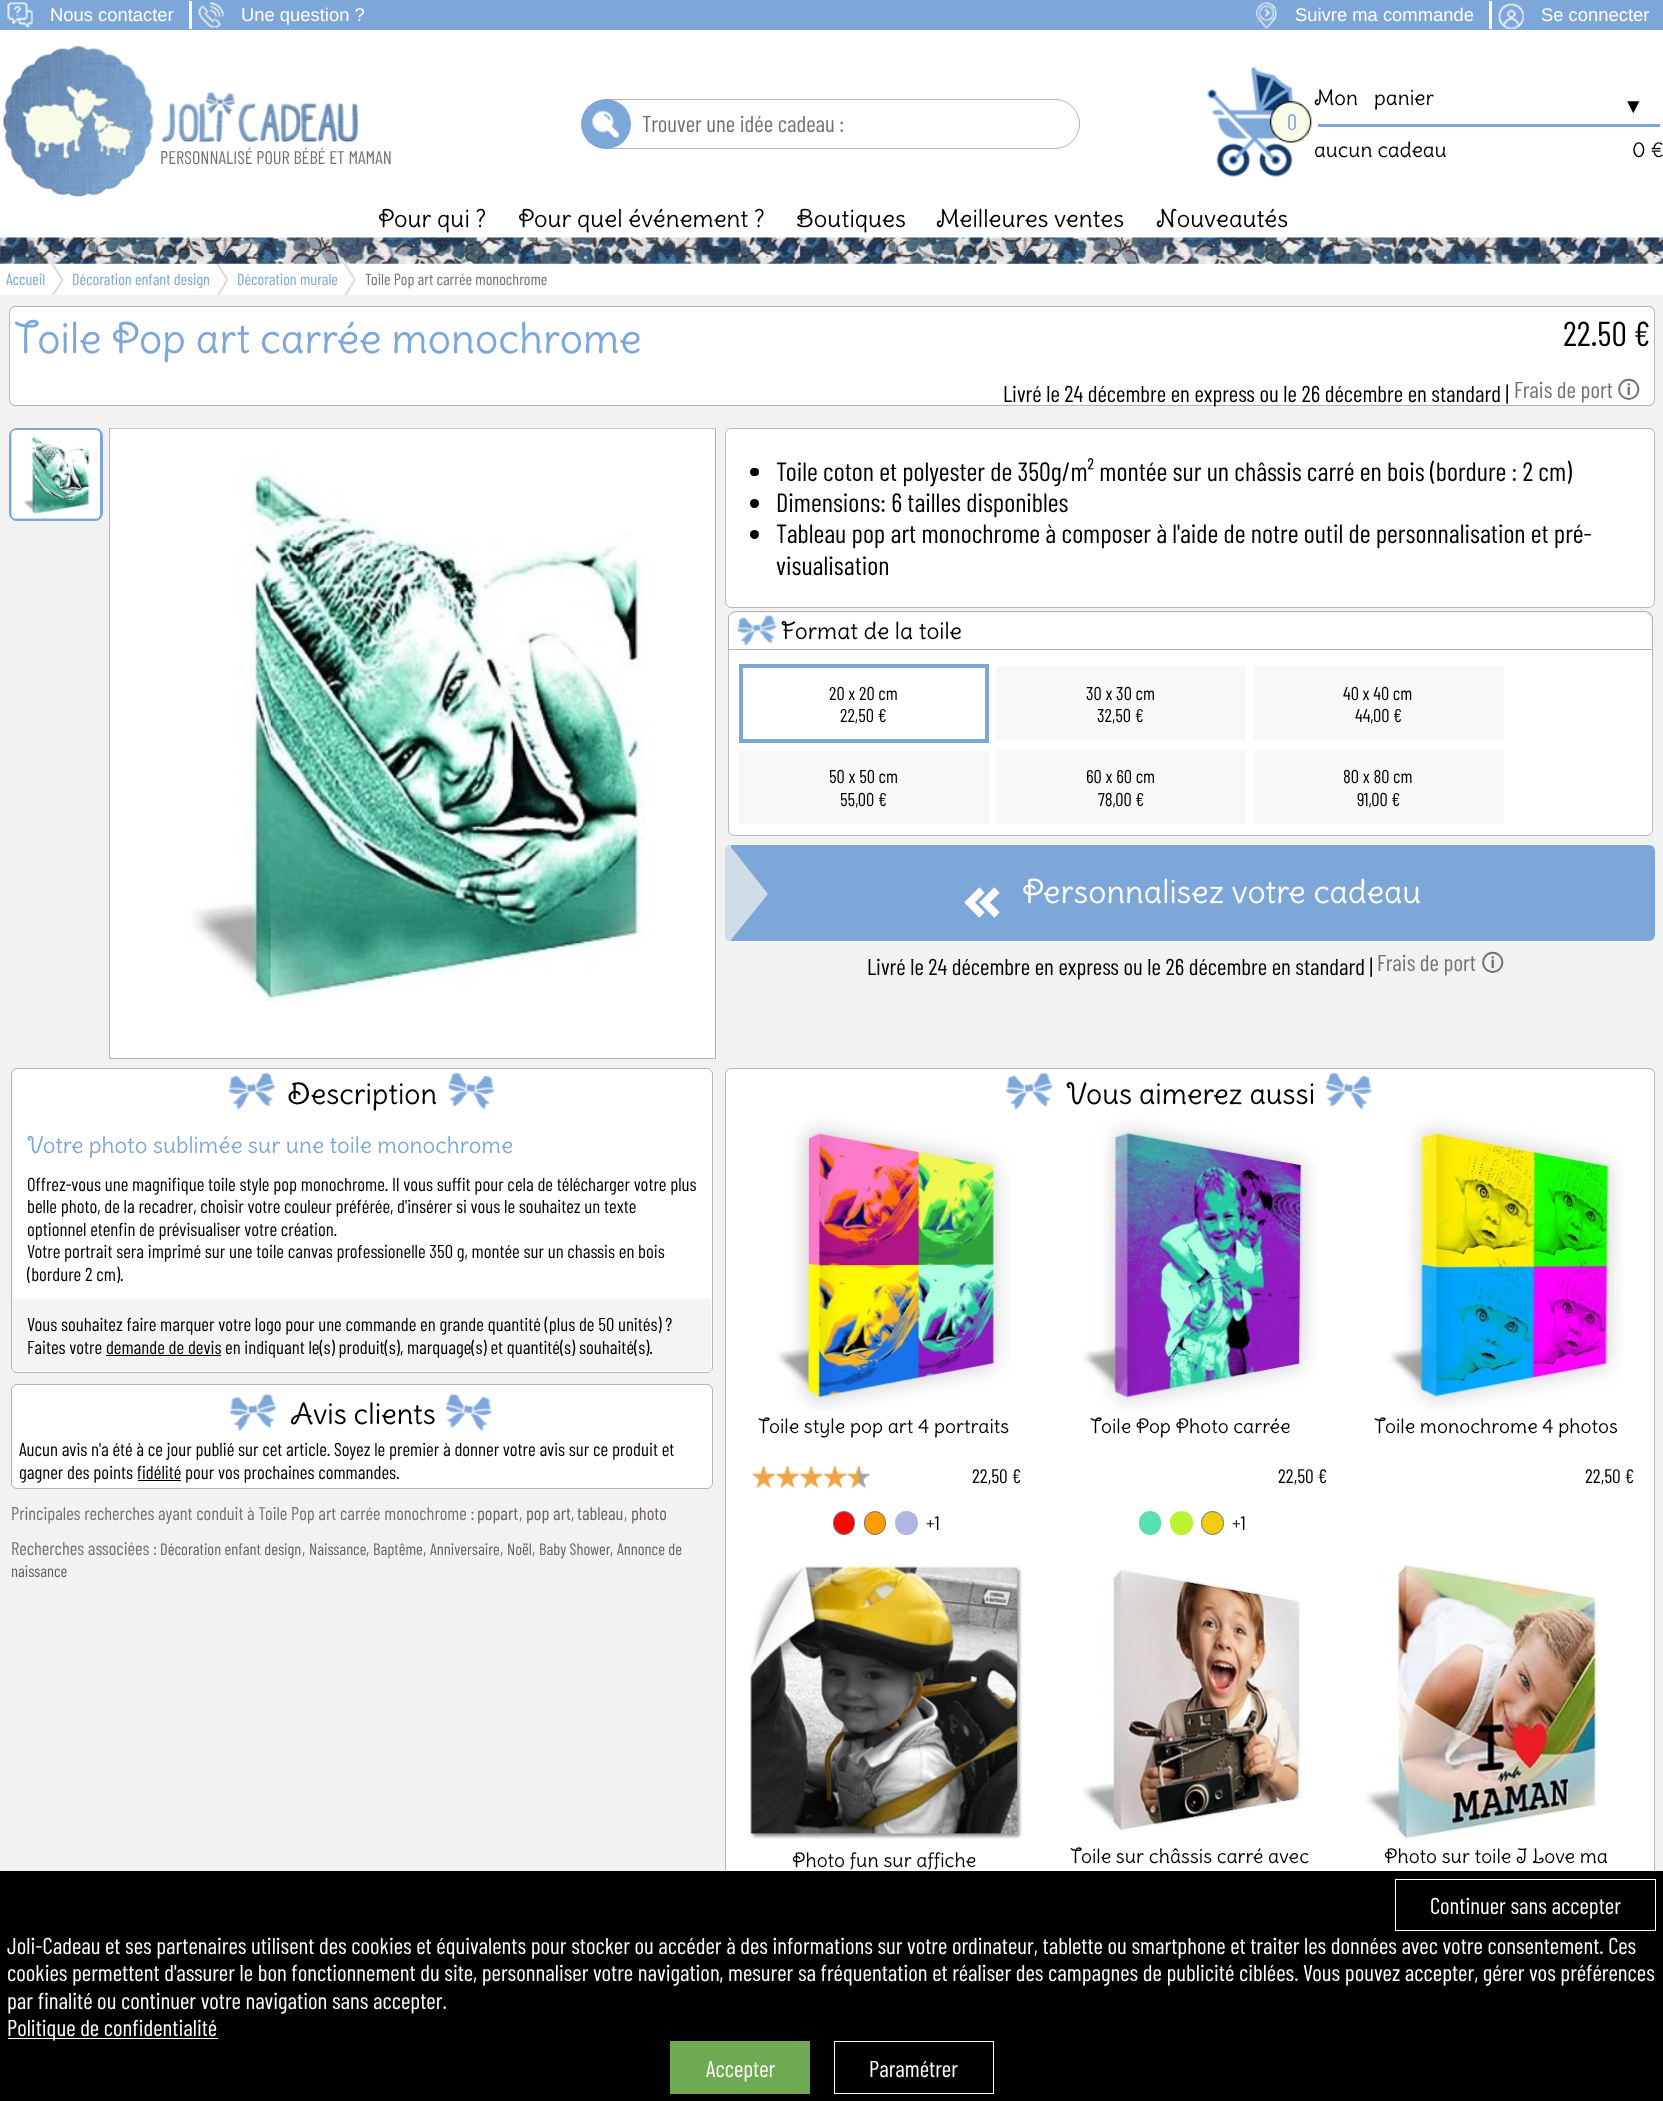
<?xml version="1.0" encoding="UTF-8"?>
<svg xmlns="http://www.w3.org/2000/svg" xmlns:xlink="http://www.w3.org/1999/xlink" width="1663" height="2101">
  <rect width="100%" height="100%" fill="#ffffff" />
  <rect width="1663" height="30" fill="#7da7d9" />
  <image x="7" y="2" width="26" height="26" xlink:href="image1.png" />
  <image x="198" y="2" width="26" height="26" xlink:href="image2.png" />
  <rect x="189" y="1" width="3" height="28" fill="#ffffff" />
  <image x="1256" y="2" width="21" height="27" xlink:href="image3.png" />
  <image x="1498" y="3" width="26" height="26" xlink:href="image4.png" />
  <rect x="1489" y="1" width="3" height="28" fill="#ffffff" />
  <rect x="584.5" y="99.5" width="495" height="49" rx="24.5" fill="none" stroke="#b4b4b4" />
  <circle cx="606" cy="124" r="25" fill="#7da7d9" />
  <image x="592" y="111" width="31" height="27" xlink:href="image5.png" />
  <image x="1207" y="67" width="105" height="110" xlink:href="image6.png" />
  <rect x="1318" y="124" width="342" height="3" fill="#7da7d9" />
  <image x="2" y="46" width="356" height="151" xlink:href="image7.png" />
  <image x="0" y="237" width="1663" height="27" xlink:href="image8.png" />
  <rect y="295" width="1663" height="1576" fill="#f2f2f2" />
  <image x="51" y="264" width="13" height="31" xlink:href="image9.png" />
  <image x="216" y="264" width="13" height="31" xlink:href="image9.png" />
  <image x="343" y="264" width="14" height="31" xlink:href="image10.png" />
  <rect x="9.5" y="306.5" width="1645" height="99" rx="5.5" fill="#ffffff" stroke="#b4b4b4" />
  <rect x="10.5" y="429.5" width="91" height="90" rx="6.5" fill="none" stroke="#7da7d9" stroke-width="3" />
  <image x="11" y="430" width="89" height="89" xlink:href="image11.png" />
  <rect x="110" y="1003" width="605" height="55" fill="#ffffff" />
  <rect x="109.5" y="428.5" width="606" height="630" fill="none" stroke="#b4b4b4" />
  <image x="110" y="428" width="605" height="575" xlink:href="image12.png" />
  <rect x="725.5" y="428.5" width="929" height="179" rx="5.5" fill="#ffffff" stroke="#bababa" />
  <rect x="750" y="468" width="9" height="8" rx="4" fill="#000000" />
  <circle cx="754.5" cy="503.5" r="4.5" fill="#000000" />
  <circle cx="754.5" cy="534.5" r="4.5" fill="#000000" />
  <rect x="728.5" y="613.5" width="924" height="222" rx="5.5" fill="#ffffff" stroke="#bababa" />
  <path d="M 736 611.5 h 909 c 4 0 7.5 3.5 7.5 7.5 v 30.5 h -924 v -30.5 c 0 -4 3.5 -7.5 7.5 -7.5 z" fill="none" stroke="#b4b4b4" />
  <path d="M 735 613 h 910 c 3.5 0 6 2.5 6 6 v 30 h -922 v -30 c 0 -3.5 2.5 -6 6 -6 z" fill="#ffffff" />
  <image x="737" y="615" width="40" height="32" xlink:href="image13.png" />
  <rect x="741" y="666" width="246" height="75" fill="none" stroke="#7da7d9" stroke-width="4" />
  <rect x="996" y="666" width="250" height="74" fill="#f8f8f8" />
  <rect x="1254" y="666" width="250" height="74" fill="#f8f8f8" />
  <rect x="739" y="750" width="250" height="74" fill="#f8f8f8" />
  <rect x="996" y="750" width="250" height="74" fill="#f8f8f8" />
  <rect x="1254" y="750" width="250" height="74" fill="#f8f8f8" />
  <rect x="725" y="845" width="930" height="96" rx="6" fill="#7da7d9" />
  <path d="M 731 845 v 96 c -3.5 0 -6 -2.5 -6 -6 v -84 c 0 -3.5 2.5 -6 6 -6 z" fill="#d0dce8" />
  <path d="M 730 941 v -95 l 38 48 z" fill="#d0dce8" />
  <path d="M 982 890 l -12.5 12.5 l 12.5 12.5 m 15 -25 l -12.5 12.5 l 12.5 12.5" fill="none" stroke="#ffffff" stroke-width="7.5" />
  <rect x="11.5" y="1068.5" width="701" height="304" rx="5.5" fill="#ffffff" stroke="#b4b4b4" />
  <image x="228" y="1072" width="48" height="38" xlink:href="image14.png" />
  <image x="448" y="1072" width="46" height="38" xlink:href="image15.png" />
  <rect x="13" y="1299" width="698" height="72" fill="#f4f4f4" />
  <rect x="106" y="1355" width="115" height="1" fill="#000000" />
  <rect x="11.5" y="1384.5" width="701" height="104" rx="5.5" fill="#ffffff" stroke="#b4b4b4" />
  <image x="229" y="1393" width="48" height="39" xlink:href="image16.png" />
  <image x="446" y="1393" width="46" height="39" xlink:href="image17.png" />
  <rect x="138" y="1480" width="43" height="1" fill="#000000" />
  <rect x="725.5" y="1068.5" width="929" height="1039" rx="5.5" fill="#ffffff" stroke="#b4b4b4" />
  <image x="1006" y="1072" width="47" height="38" xlink:href="image18.png" />
  <image x="1326" y="1072" width="46" height="38" xlink:href="image19.png" />
  <image x="776" y="1119" width="234" height="292" xlink:href="image20.png" />
  <image x="751" y="1466" width="24" height="24" xlink:href="image21.png" />
  <image x="775" y="1466" width="24" height="24" xlink:href="image22.png" />
  <image x="799" y="1466" width="24" height="24" xlink:href="image23.png" />
  <image x="823" y="1466" width="24" height="24" xlink:href="image24.png" />
  <image x="846" y="1466" width="24" height="23" xlink:href="image25.png" />
  <rect x="833.5" y="1511.5" width="21" height="23" rx="10.5" fill="#f90707" stroke="#727272" />
  <rect x="864.5" y="1511.5" width="21" height="23" rx="10.5" fill="#ff9c00" stroke="#727272" />
  <rect x="895" y="1511" width="23" height="24" rx="11.5" fill="#b0b6e2" />
  <image x="1082" y="1119" width="235" height="292" xlink:href="image26.png" />
  <rect x="1139" y="1511" width="22" height="24" rx="11" fill="#59e0af" />
  <rect x="1170" y="1511" width="23" height="24" rx="11.5" fill="#baf234" />
  <rect x="1201.5" y="1511.5" width="22" height="23" rx="11" fill="#f0cd0e" stroke="#727272" />
  <image x="1389" y="1119" width="235" height="292" xlink:href="image27.png" />
  <image x="750" y="1565" width="272" height="274" xlink:href="image28.png" />
  <image x="1082" y="1570" width="220" height="261" xlink:href="image29.png" />
  <image x="1365" y="1564" width="234" height="277" xlink:href="image30.png" />
  <rect y="1871" width="1663" height="230" fill="#000000" />
  <rect x="1395.5" y="1879.5" width="260" height="51" fill="none" stroke="#ffffff" />
  <rect x="8" y="2038" width="210" height="1" fill="#ffffff" />
  <rect x="670" y="2041" width="140" height="53" fill="#6eaa52" />
  <rect x="834.5" y="2041.5" width="159" height="52" fill="none" stroke="#ffffff" />
  <text x="50" y="21" style="font-family: Liberation Sans; font-size: 18.4px; fill: #ffffff">Nous contacter</text>
  <text x="241" y="21" style="font-family: Liberation Sans; font-size: 18.4px; fill: #ffffff">Une question ?</text>
  <text x="1295" y="21" style="font-family: Liberation Sans; font-size: 18.4px; fill: #ffffff">Suivre ma commande</text>
  <text x="1541" y="21" style="font-family: Liberation Sans; font-size: 18.4px; fill: #ffffff">Se connecter</text>
  <text x="642" y="132" style="font-family: Barlow Condensed; font-size: 23px; fill: #727272">Trouver une idée cadeau :</text>
  <text x="1287" y="130" style="font-family: Barlow Condensed; font-size: 22.5px; fill: #7da7d9">0</text>
  <text x="1314" y="105" word-spacing="11" style="font-family: Delius Swash Caps; font-size: 20.75px; fill: #000000">Mon panier</text>
  <text x="1623" y="113" style="font-family: Liberation Serif; font-size: 20.75px; fill: #000000">▼</text>
  <text x="1314" y="157" style="font-family: Delius Swash Caps; font-size: 20.75px; fill: #000000">aucun cadeau</text>
  <text x="1632" y="157" style="font-family: Delius Swash Caps; font-size: 20.75px; fill: #000000">0 €</text>
  <text x="160" y="164" style="font-family: Barlow Condensed; font-size: 18.4px; fill: #727272">PERSONNALISÉ POUR BÉBÉ ET MAMAN</text>
  <text x="378" y="227" style="font-family: Delius Swash Caps; font-size: 24px; fill: #000000">Pour qui ?</text>
  <text x="518" y="227" style="font-family: Delius Swash Caps; font-size: 24px; fill: #000000">Pour quel événement ?</text>
  <text x="796" y="227" style="font-family: Delius Swash Caps; font-size: 24px; fill: #000000">Boutiques</text>
  <text x="936" y="227" style="font-family: Delius Swash Caps; font-size: 24px; fill: #000000">Meilleures ventes</text>
  <text x="1156" y="227" style="font-family: Delius Swash Caps; font-size: 24px; fill: #000000">Nouveautés</text>
  <text x="6" y="285" style="font-family: Barlow Condensed; font-size: 16.1px; fill: #7da7d9">Accueil</text>
  <text x="72" y="285" style="font-family: Barlow Condensed; font-size: 16.1px; fill: #7da7d9">Décoration enfant design</text>
  <text x="237" y="285" style="font-family: Barlow Condensed; font-size: 16.1px; fill: #7da7d9">Décoration murale</text>
  <text x="365" y="285" style="font-family: Barlow Condensed; font-size: 16.1px; fill: #727272">Toile Pop art carrée monochrome</text>
  <text x="14" y="353" style="font-family: Delius Swash Caps; font-size: 41.4px; fill: #7da7d9">Toile Pop art carrée monochrome</text>
  <text x="1563" y="346" style="font-family: Barlow Condensed; font-size: 34.5px; fill: #000000">22.50 €</text>
  <text x="1003" y="402" style="font-family: Barlow Condensed; font-size: 23px; fill: #000000">Livré le 24 décembre en express ou le 26 décembre en standard |</text>
  <text x="1514" y="398" style="font-family: Barlow Condensed; font-size: 23px; fill: #727272">Frais de port</text>
  <text x="1617" y="398" style="font-family: 'Noto Sans Symbols 2'; font-size: 23px; fill: #727272">🛈</text>
  <text x="776" y="481" style="font-family: Barlow Condensed; font-size: 26.45px; fill: #000000">Toile coton et polyester de 350g/m² montée sur un châssis carré en bois (bordure : 2 cm)</text>
  <text x="776" y="512" style="font-family: Barlow Condensed; font-size: 26.45px; fill: #000000">Dimensions: 6 tailles disponibles</text>
  <text x="776" y="543" style="font-family: Barlow Condensed; font-size: 26.45px; fill: #000000">Tableau pop art monochrome à composer à l'aide de notre outil de personnalisation et pré-</text>
  <text x="776" y="575" style="font-family: Barlow Condensed; font-size: 26.45px; fill: #000000">visualisation</text>
  <text x="781" y="639" style="font-family: Delius Swash Caps; font-size: 23px; fill: #000000">Format de la toile</text>
  <text x="829" y="700" style="font-family: Barlow Condensed; font-size: 18.5px; fill: #000000">20 x 20 cm</text>
  <text x="840" y="722" style="font-family: Barlow Condensed; font-size: 18.5px; fill: #000000">22,50 €</text>
  <text x="1086" y="700" style="font-family: Barlow Condensed; font-size: 18.5px; fill: #000000">30 x 30 cm</text>
  <text x="1097" y="722" style="font-family: Barlow Condensed; font-size: 18.5px; fill: #000000">32,50 €</text>
  <text x="1343" y="700" style="font-family: Barlow Condensed; font-size: 18.5px; fill: #000000">40 x 40 cm</text>
  <text x="1355" y="722" style="font-family: Barlow Condensed; font-size: 18.5px; fill: #000000">44,00 €</text>
  <text x="829" y="783" style="font-family: Barlow Condensed; font-size: 18.5px; fill: #000000">50 x 50 cm</text>
  <text x="840" y="806" style="font-family: Barlow Condensed; font-size: 18.5px; fill: #000000">55,00 €</text>
  <text x="1086" y="783" style="font-family: Barlow Condensed; font-size: 18.5px; fill: #000000">60 x 60 cm</text>
  <text x="1098" y="806" style="font-family: Barlow Condensed; font-size: 18.5px; fill: #000000">78,00 €</text>
  <text x="1343" y="783" style="font-family: Barlow Condensed; font-size: 18.5px; fill: #000000">80 x 80 cm</text>
  <text x="1357" y="806" style="font-family: Barlow Condensed; font-size: 18.5px; fill: #000000">91,00 €</text>
  <text x="1022" y="903" style="font-family: Delius Swash Caps; font-size: 32.25px; fill: #ffffff">Personnalisez votre cadeau</text>
  <text x="867" y="975" style="font-family: Barlow Condensed; font-size: 23px; fill: #000000">Livré le 24 décembre en express ou le 26 décembre en standard |</text>
  <text x="1377" y="971" style="font-family: Barlow Condensed; font-size: 23px; fill: #727272">Frais de port</text>
  <text x="1481" y="971" style="font-family: 'Noto Sans Symbols 2'; font-size: 23px; fill: #727272">🛈</text>
  <text x="287" y="1104" style="font-family: Delius Swash Caps; font-size: 28.75px; fill: #000000">Description</text>
  <text x="27" y="1153" style="font-family: Delius Swash Caps; font-size: 22.5px; fill: #7da7d9">Votre photo sublimée sur une toile monochrome</text>
  <text x="27" y="1191" style="font-family: Barlow Condensed; font-size: 18.75px; fill: #000000">Offrez-vous une magnifique toile style pop monochrome. Il vous suffit pour cela de télécharger votre plus</text>
  <text x="27" y="1213" style="font-family: Barlow Condensed; font-size: 18.75px; fill: #000000">belle photo, de la recadrer, choisir votre couleur préférée, d'insérer si vous le souhaitez un texte</text>
  <text x="27" y="1236" style="font-family: Barlow Condensed; font-size: 18.75px; fill: #000000">optionnel etenfin de prévisualiser votre création.</text>
  <text x="27" y="1258" style="font-family: Barlow Condensed; font-size: 18.75px; fill: #000000">Votre portrait sera imprimé sur une toile canvas professionelle 350 g, montée sur un chassis en bois</text>
  <text x="27" y="1281" style="font-family: Barlow Condensed; font-size: 18.75px; fill: #000000">(bordure 2 cm).</text>
  <text x="27" y="1331" style="font-family: Barlow Condensed; font-size: 18.75px; fill: #000000">Vous souhaitez faire marquer votre logo pour une commande en grande quantité (plus de 50 unités) ?</text>
  <text x="27" y="1354" style="font-family: Barlow Condensed; font-size: 18.75px; fill: #000000">Faites votre demande de devis</text>
  <text x="225" y="1354" style="font-family: Barlow Condensed; font-size: 18.75px; fill: #000000">en indiquant le(s) produit(s), marquage(s) et quantité(s) souhaité(s).</text>
  <text x="290" y="1424" style="font-family: Delius Swash Caps; font-size: 28.75px; fill: #000000">Avis clients</text>
  <text x="19" y="1456" style="font-family: Barlow Condensed; font-size: 18.75px; fill: #000000">Aucun avis n'a été à ce jour publié sur cet article. Soyez le premier à donner votre avis sur ce produit et</text>
  <text x="19" y="1479" style="font-family: Barlow Condensed; font-size: 18.75px; fill: #000000">gagner des points fidélité</text>
  <text x="185" y="1479" style="font-family: Barlow Condensed; font-size: 18.75px; fill: #000000">pour vos prochaines commandes.</text>
  <text x="11" y="1520" style="font-family: Barlow Condensed; font-size: 18.4px; fill: #727272">Principales recherches ayant conduit à Toile Pop art carrée monochrome :</text>
  <text x="477" y="1520" style="font-family: Barlow Condensed; font-size: 18.4px; fill: #696260">popart</text>
  <text x="519" y="1520" style="font-family: Barlow Condensed; font-size: 18.4px; fill: #727272">,</text>
  <text x="526" y="1520" style="font-family: Barlow Condensed; font-size: 18.4px; fill: #696260">pop art</text>
  <text x="571" y="1520" style="font-family: Barlow Condensed; font-size: 18.4px; fill: #727272">,</text>
  <text x="577" y="1520" style="font-family: Barlow Condensed; font-size: 18.4px; fill: #696260">tableau</text>
  <text x="624" y="1520" style="font-family: Barlow Condensed; font-size: 18.4px; fill: #727272">,</text>
  <text x="631" y="1520" style="font-family: Barlow Condensed; font-size: 18.4px; fill: #696260">photo</text>
  <text x="11" y="1555" style="font-family: Barlow Condensed; font-size: 18.4px; fill: #727272">Recherches associées :</text>
  <text x="160" y="1555" style="font-family: Barlow Condensed; font-size: 16.5px; fill: #696260">Décoration enfant design</text>
  <text x="302" y="1555" style="font-family: Barlow Condensed; font-size: 18.4px; fill: #727272">,</text>
  <text x="309" y="1555" style="font-family: Barlow Condensed; font-size: 16.5px; fill: #696260">Naissance</text>
  <text x="366" y="1555" style="font-family: Barlow Condensed; font-size: 18.4px; fill: #727272">,</text>
  <text x="373" y="1555" style="font-family: Barlow Condensed; font-size: 16.5px; fill: #696260">Baptême</text>
  <text x="423" y="1555" style="font-family: Barlow Condensed; font-size: 18.4px; fill: #727272">,</text>
  <text x="430" y="1555" style="font-family: Barlow Condensed; font-size: 16.5px; fill: #696260">Anniversaire</text>
  <text x="500" y="1555" style="font-family: Barlow Condensed; font-size: 18.4px; fill: #727272">,</text>
  <text x="507" y="1555" style="font-family: Barlow Condensed; font-size: 16.5px; fill: #696260">Noël</text>
  <text x="532" y="1555" style="font-family: Barlow Condensed; font-size: 18.4px; fill: #727272">,</text>
  <text x="539" y="1555" style="font-family: Barlow Condensed; font-size: 16.5px; fill: #696260">Baby Shower</text>
  <text x="610" y="1555" style="font-family: Barlow Condensed; font-size: 18.4px; fill: #727272">,</text>
  <text x="617" y="1555" style="font-family: Barlow Condensed; font-size: 16.5px; fill: #696260">Annonce de</text>
  <text x="11" y="1577" style="font-family: Barlow Condensed; font-size: 16.5px; fill: #696260">naissance</text>
  <text x="1066" y="1104" style="font-family: Delius Swash Caps; font-size: 28.75px; fill: #000000">Vous aimerez aussi</text>
  <text x="758" y="1433" style="font-family: Delius Swash Caps; font-size: 19.5px; fill: #000000">Toile style pop art 4 portraits</text>
  <text x="972" y="1483" style="font-family: Barlow Condensed; font-size: 19.5px; fill: #000000">22,50 €</text>
  <text x="926" y="1530" style="font-family: Barlow Condensed; font-size: 19.5px; fill: #000000">+1</text>
  <text x="1090" y="1433" style="font-family: Delius Swash Caps; font-size: 19.5px; fill: #000000">Toile Pop Photo carrée</text>
  <text x="1278" y="1483" style="font-family: Barlow Condensed; font-size: 19.5px; fill: #000000">22,50 €</text>
  <text x="1232" y="1530" style="font-family: Barlow Condensed; font-size: 19.5px; fill: #000000">+1</text>
  <text x="1374" y="1433" style="font-family: Delius Swash Caps; font-size: 19.5px; fill: #000000">Toile monochrome 4 photos</text>
  <text x="1585" y="1483" style="font-family: Barlow Condensed; font-size: 19.5px; fill: #000000">22,50 €</text>
  <text x="792" y="1867" style="font-family: Delius Swash Caps; font-size: 19.5px; fill: #000000">Photo fun sur affiche</text>
  <text x="1070" y="1863" style="font-family: Delius Swash Caps; font-size: 19.5px; fill: #000000">Toile sur châssis carré avec</text>
  <text x="1384" y="1863" style="font-family: Delius Swash Caps; font-size: 19.5px; fill: #000000">Photo sur toile I Love ma</text>
  <text x="1430" y="1914" style="font-family: Barlow Condensed; font-size: 23px; fill: #ffffff">Continuer sans accepter</text>
  <text x="7" y="1954" style="font-family: Barlow Condensed; font-size: 23px; fill: #ffffff">Joli-Cadeau et ses partenaires utilisent des cookies et équivalents pour stocker ou accéder à des informations sur votre ordinateur, tablette ou smartphone et traiter les données avec votre consentement. Ces</text>
  <text x="7" y="1981" style="font-family: Barlow Condensed; font-size: 23px; fill: #ffffff">cookies permettent d'assurer le bon fonctionnement du site, personnaliser votre navigation, mesurer sa fréquentation et réaliser des campagnes de publicité ciblées. Vous pouvez accepter, gérer vos préférences</text>
  <text x="7" y="2009" style="font-family: Barlow Condensed; font-size: 23px; fill: #ffffff">par finalité ou continuer votre navigation sans accepter.</text>
  <text x="7" y="2036" style="font-family: Barlow Condensed; font-size: 23px; fill: #ffffff">Politique de confidentialité</text>
  <text x="706" y="2077" style="font-family: Barlow Condensed; font-size: 23px; fill: #ffffff">Accepter</text>
  <text x="869" y="2077" style="font-family: Barlow Condensed; font-size: 23px; fill: #ffffff">Paramétrer</text>
</svg>
